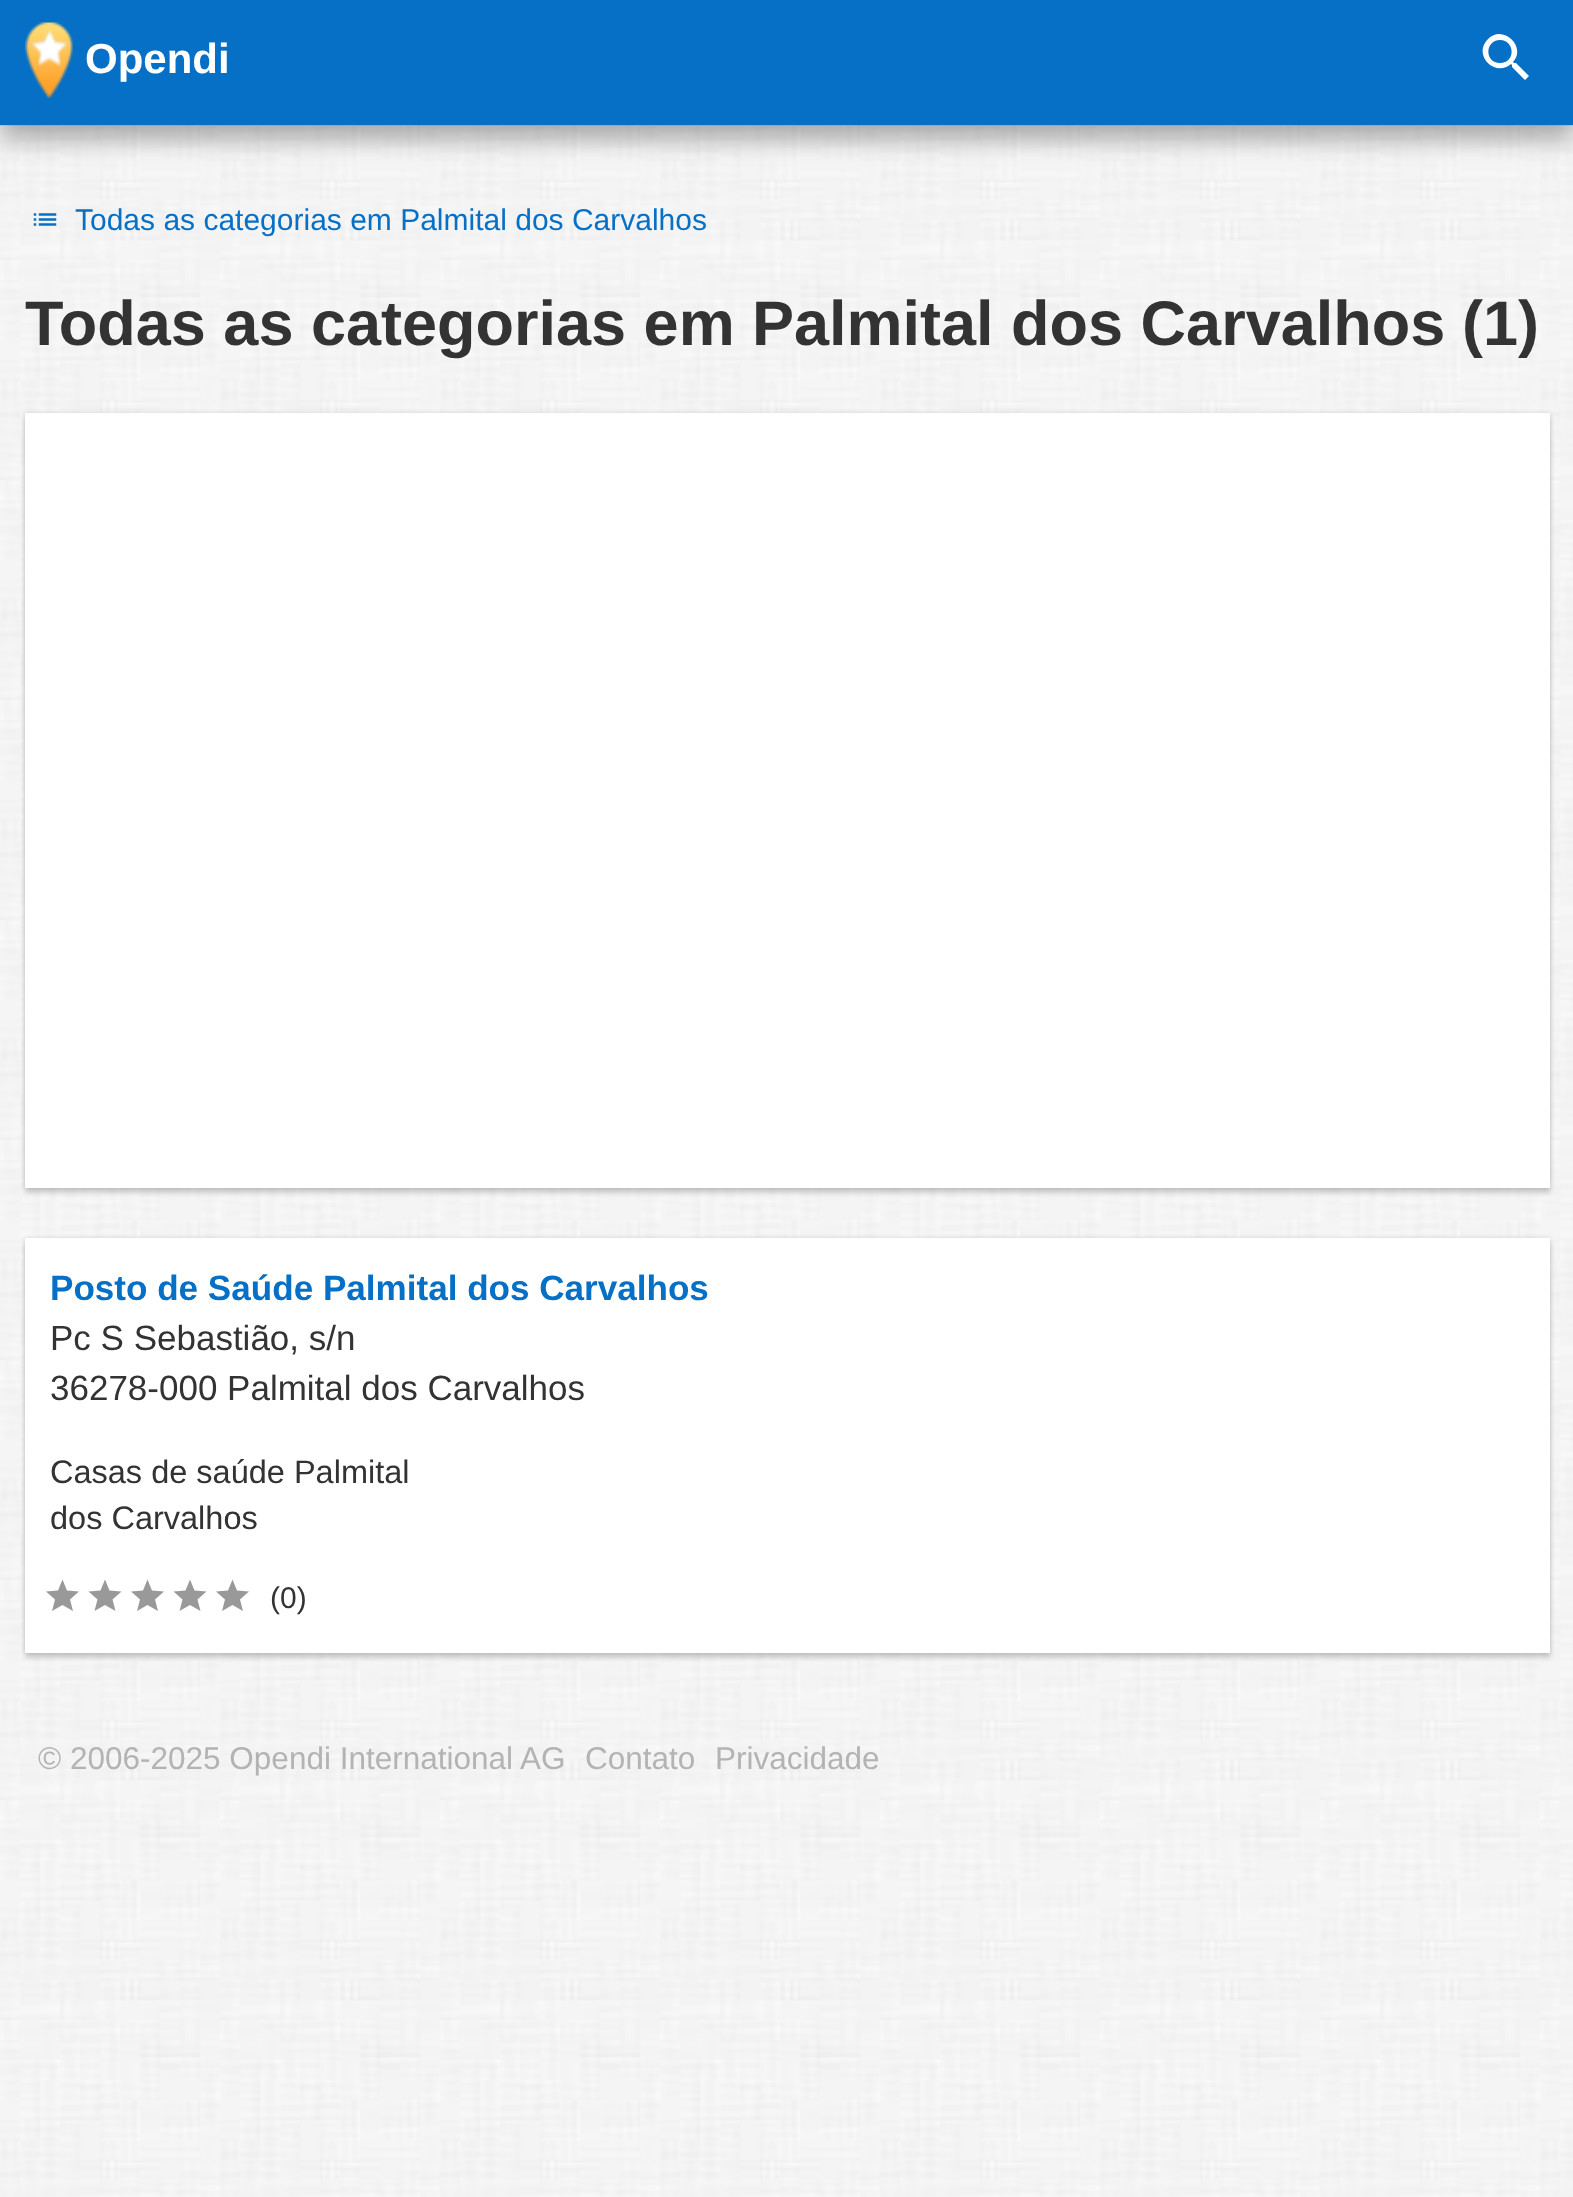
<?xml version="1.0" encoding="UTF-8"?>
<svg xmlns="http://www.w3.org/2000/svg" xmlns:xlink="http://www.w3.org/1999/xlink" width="1573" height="2197">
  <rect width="100%" height="100%" fill="#ffffff" />
  <image x="0" y="126" width="1573" height="2071" xlink:href="image1.png" />
  <rect y="125" width="1573" height="1" fill="#e0e0e0" />
  <rect y="15" width="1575" height="125" fill="#000000" fill-opacity="0.3" filter="blur(12.5px)" />
  <rect width="1573" height="125" fill="#0670c6" />
  <image x="25" y="22" width="48" height="76" xlink:href="image2.png" />
  <path d="M 1516 63 h -2 l -1 -1 c 14 -15 -10 -38 -25 -23 c -16 16 7 39 23 25 l 1 1 v 2 l 13 13 l 4 -4 z m -16 0 c -16 0 -15 -23 0 -23 c 15 0 16 23 0 23 z" fill="#ffffff" />
  <image x="33" y="213" width="24" height="13" xlink:href="image3.png" />
  <rect x="25" y="413" width="1525" height="775" fill="#000000" fill-opacity="0.12" filter="blur(2.5px)" />
  <rect x="25" y="418" width="1525" height="775" fill="#000000" fill-opacity="0.16" filter="blur(2.5px)" />
  <rect x="25" y="413" width="1525" height="775" fill="#ffffff" />
  <rect x="25" y="1238" width="1525" height="415" fill="#000000" fill-opacity="0.12" filter="blur(2.5px)" />
  <rect x="25" y="1243" width="1525" height="415" fill="#000000" fill-opacity="0.16" filter="blur(2.5px)" />
  <rect x="25" y="1238" width="1525" height="415" fill="#ffffff" />
  <path d="M 62.5 1605 l 10.5 6 l -3 -11.5 l 9 -8 l -12 -1 l -4.5 -11 l -4.5 11 l -12 1 l 9 8 l -3 11.5 z" fill="#999999" />
  <path d="M 105 1605 l 10.5 6 l -3 -11.5 l 9 -8 l -12 -1 l -4.5 -11 l -4.5 11 l -12 1 l 9 8 l -3 11.5 z" fill="#999999" />
  <path d="M 147.5 1605 l 10.5 6 l -3 -11.5 l 9 -8 l -12 -1 l -4.5 -11 l -4.5 11 l -12 1 l 9 8 l -3 11.5 z" fill="#999999" />
  <path d="M 190 1605 l 10.5 6 l -3 -11.5 l 9 -8 l -12 -1 l -4.5 -11 l -4.5 11 l -12 1 l 9 8 l -3 11.5 z" fill="#999999" />
  <path d="M 232.5 1605 l 10.5 6 l -3 -11.5 l 9 -8 l -12 -1 l -4.5 -11 l -4.5 11 l -12 1 l 9 8 l -3 11.5 z" fill="#999999" />
  <text x="85" y="73" style="font-family: Liberation Sans; font-size: 42px; font-weight: bold; fill: #ffffff">Opendi</text>
  <text x="75" y="230" style="font-family: Liberation Sans; font-size: 30px; fill: #0670c6">Todas as categorias em Palmital dos Carvalhos</text>
  <text x="25" y="345" style="font-family: Liberation Sans; font-size: 63px; font-weight: bold; fill: #333333">Todas as categorias em</text>
  <text x="752" y="345" style="font-family: Liberation Sans; font-size: 63px; font-weight: bold; fill: #333333">Palmital dos Carvalhos</text>
  <text x="1462" y="345" style="font-family: Liberation Sans; font-size: 63px; font-weight: bold; fill: #333333">(1)</text>
  <text x="50" y="1300" style="font-family: Liberation Sans; font-size: 35.1px; font-weight: bold; fill: #0670c6">Posto de Saúde Palmital dos Carvalhos</text>
  <text x="50" y="1350" style="font-family: Liberation Sans; font-size: 35px; fill: #333333">Pc S Sebastião, s/n</text>
  <text x="50" y="1400" style="font-family: Liberation Sans; font-size: 35px; fill: #333333">36278-000 Palmital dos Carvalhos</text>
  <text x="50" y="1483" style="font-family: Liberation Sans; font-size: 32.5px; fill: #333333">Casas de saúde Palmital</text>
  <text x="50" y="1529" style="font-family: Liberation Sans; font-size: 32.5px; fill: #333333">dos Carvalhos</text>
  <text x="270" y="1608" style="font-family: Liberation Sans; font-size: 30px; fill: #333333">(0)</text>
  <text x="38" y="1769" style="font-family: Liberation Sans; font-size: 31.5px; fill: #b3b3b3">© 2006-2025 Opendi International AG</text>
  <text x="585" y="1769" style="font-family: Liberation Sans; font-size: 31.5px; fill: #b3b3b3">Contato</text>
  <text x="715" y="1769" style="font-family: Liberation Sans; font-size: 31.5px; fill: #b3b3b3">Privacidade</text>
</svg>
